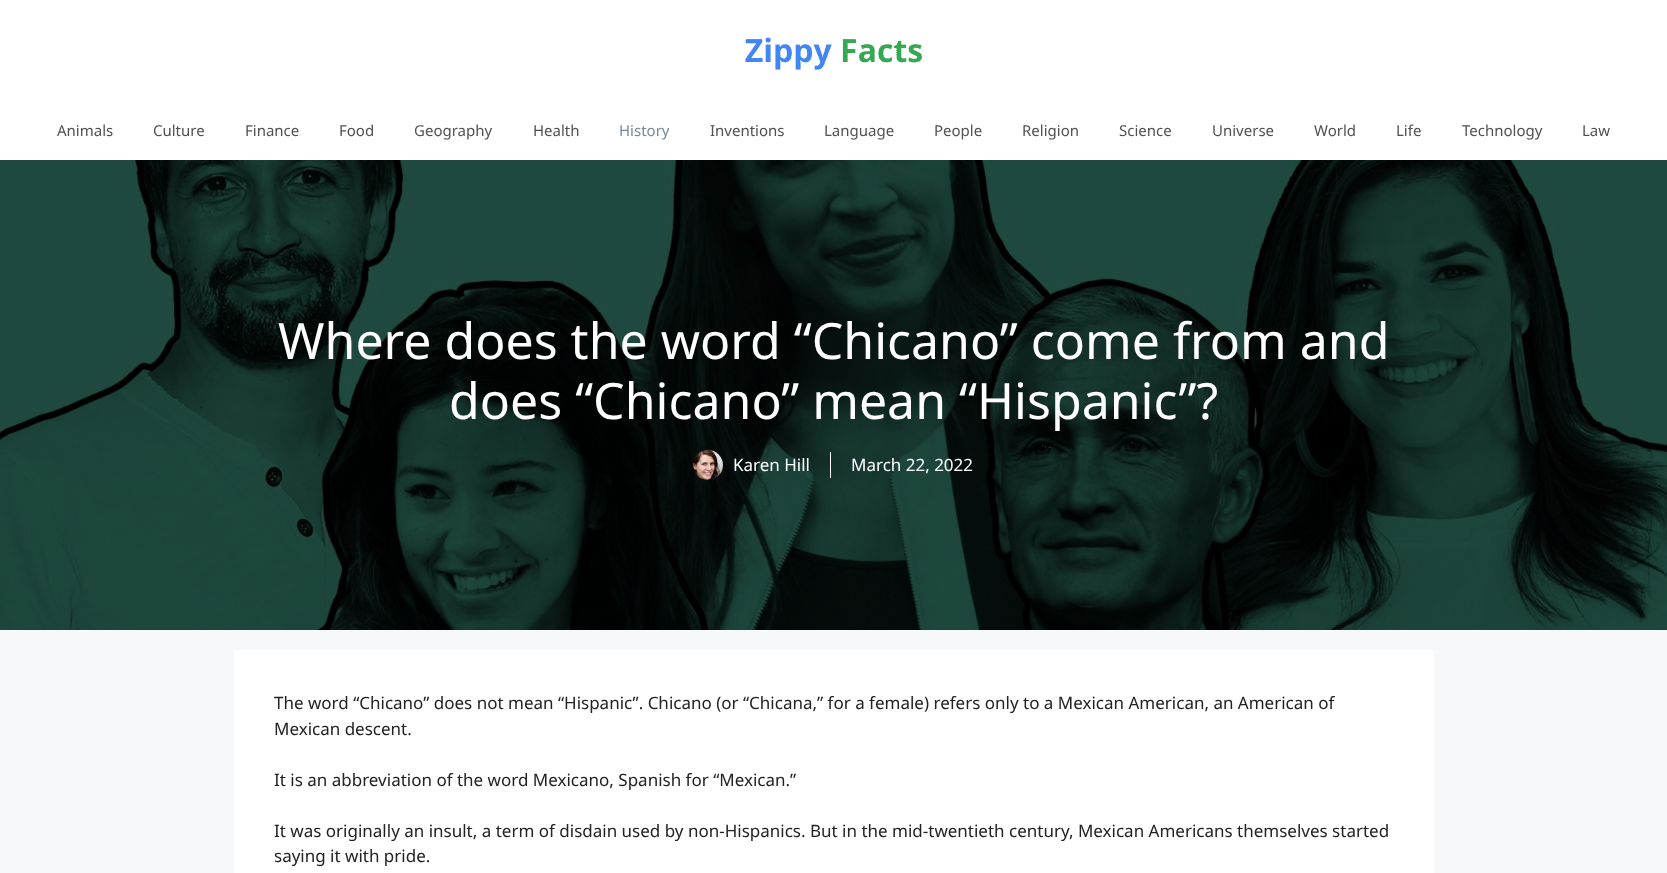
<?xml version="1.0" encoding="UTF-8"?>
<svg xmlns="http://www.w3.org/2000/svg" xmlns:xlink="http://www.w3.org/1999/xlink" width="1667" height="873">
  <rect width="100%" height="100%" fill="#f7f8f9" />
  <rect width="1667" height="160" fill="#ffffff" />
  <image x="745" y="37" width="177" height="33" xlink:href="image1.png" />
  <rect y="160" width="1667" height="470" fill="#000000" />
  <image x="0" y="160" width="1667" height="470" xlink:href="image2.png" />
  <image x="693" y="450" width="30" height="30" xlink:href="image3.png" />
  <rect x="830" y="452" width="1" height="26" fill="#ffffff" />
  <rect x="234" y="650" width="1200" height="223" fill="#ffffff" />
  <text x="57" y="136" style="font-family: Noto Sans; font-size: 15px; fill: #515151">Animals</text>
  <text x="153" y="136" style="font-family: Noto Sans; font-size: 15px; fill: #515151">Culture</text>
  <text x="245" y="136" style="font-family: Noto Sans; font-size: 15px; fill: #515151">Finance</text>
  <text x="339" y="136" style="font-family: Noto Sans; font-size: 15px; fill: #515151">Food</text>
  <text x="414" y="136" style="font-family: Noto Sans; font-size: 15px; fill: #515151">Geography</text>
  <text x="533" y="136" style="font-family: Noto Sans; font-size: 15px; fill: #515151">Health</text>
  <text x="619" y="136" style="font-family: Noto Sans; font-size: 15px; fill: #7a8896">History</text>
  <text x="710" y="136" style="font-family: Noto Sans; font-size: 15px; fill: #515151">Inventions</text>
  <text x="824" y="136" style="font-family: Noto Sans; font-size: 15px; fill: #515151">Language</text>
  <text x="934" y="136" style="font-family: Noto Sans; font-size: 15px; fill: #515151">People</text>
  <text x="1022" y="136" style="font-family: Noto Sans; font-size: 15px; fill: #515151">Religion</text>
  <text x="1119" y="136" style="font-family: Noto Sans; font-size: 15px; fill: #515151">Science</text>
  <text x="1212" y="136" style="font-family: Noto Sans; font-size: 15px; fill: #515151">Universe</text>
  <text x="1314" y="136" style="font-family: Noto Sans; font-size: 15px; fill: #515151">World</text>
  <text x="1396" y="136" style="font-family: Noto Sans; font-size: 15px; fill: #515151">Life</text>
  <text x="1462" y="136" style="font-family: Noto Sans; font-size: 15px; fill: #515151">Technology</text>
  <text x="1582" y="136" style="font-family: Noto Sans; font-size: 15px; fill: #515151">Law</text>
  <text x="278" y="359" style="font-family: Noto Sans; font-size: 50px; fill: #ffffff">Where does the word “Chicano” come from and</text>
  <text x="449" y="419" style="font-family: Noto Sans; font-size: 50px; fill: #ffffff">does “Chicano” mean “Hispanic”?</text>
  <text x="733" y="471" style="font-family: Noto Sans; font-size: 17px; fill: #ffffff">Karen Hill</text>
  <text x="851" y="471" style="font-family: Noto Sans; font-size: 17px; fill: #ffffff">March 22, 2022</text>
  <text x="274" y="709" style="font-family: Noto Sans; font-size: 17px; fill: #222222">The word “Chicano” does not mean “Hispanic”. Chicano (or “Chicana,” for a female) refers only to a Mexican American, an American of</text>
  <text x="274" y="735" style="font-family: Noto Sans; font-size: 17px; fill: #222222">Mexican descent.</text>
  <text x="274" y="786" style="font-family: Noto Sans; font-size: 17px; fill: #222222">It is an abbreviation of the word Mexicano, Spanish for “Mexican.”</text>
  <text x="274" y="837" style="font-family: Noto Sans; font-size: 17px; fill: #222222">It was originally an insult, a term of disdain used by non-Hispanics. But in the mid-twentieth century, Mexican Americans themselves started</text>
  <text x="274" y="862" style="font-family: Noto Sans; font-size: 17px; fill: #222222">saying it with pride.</text>
</svg>
